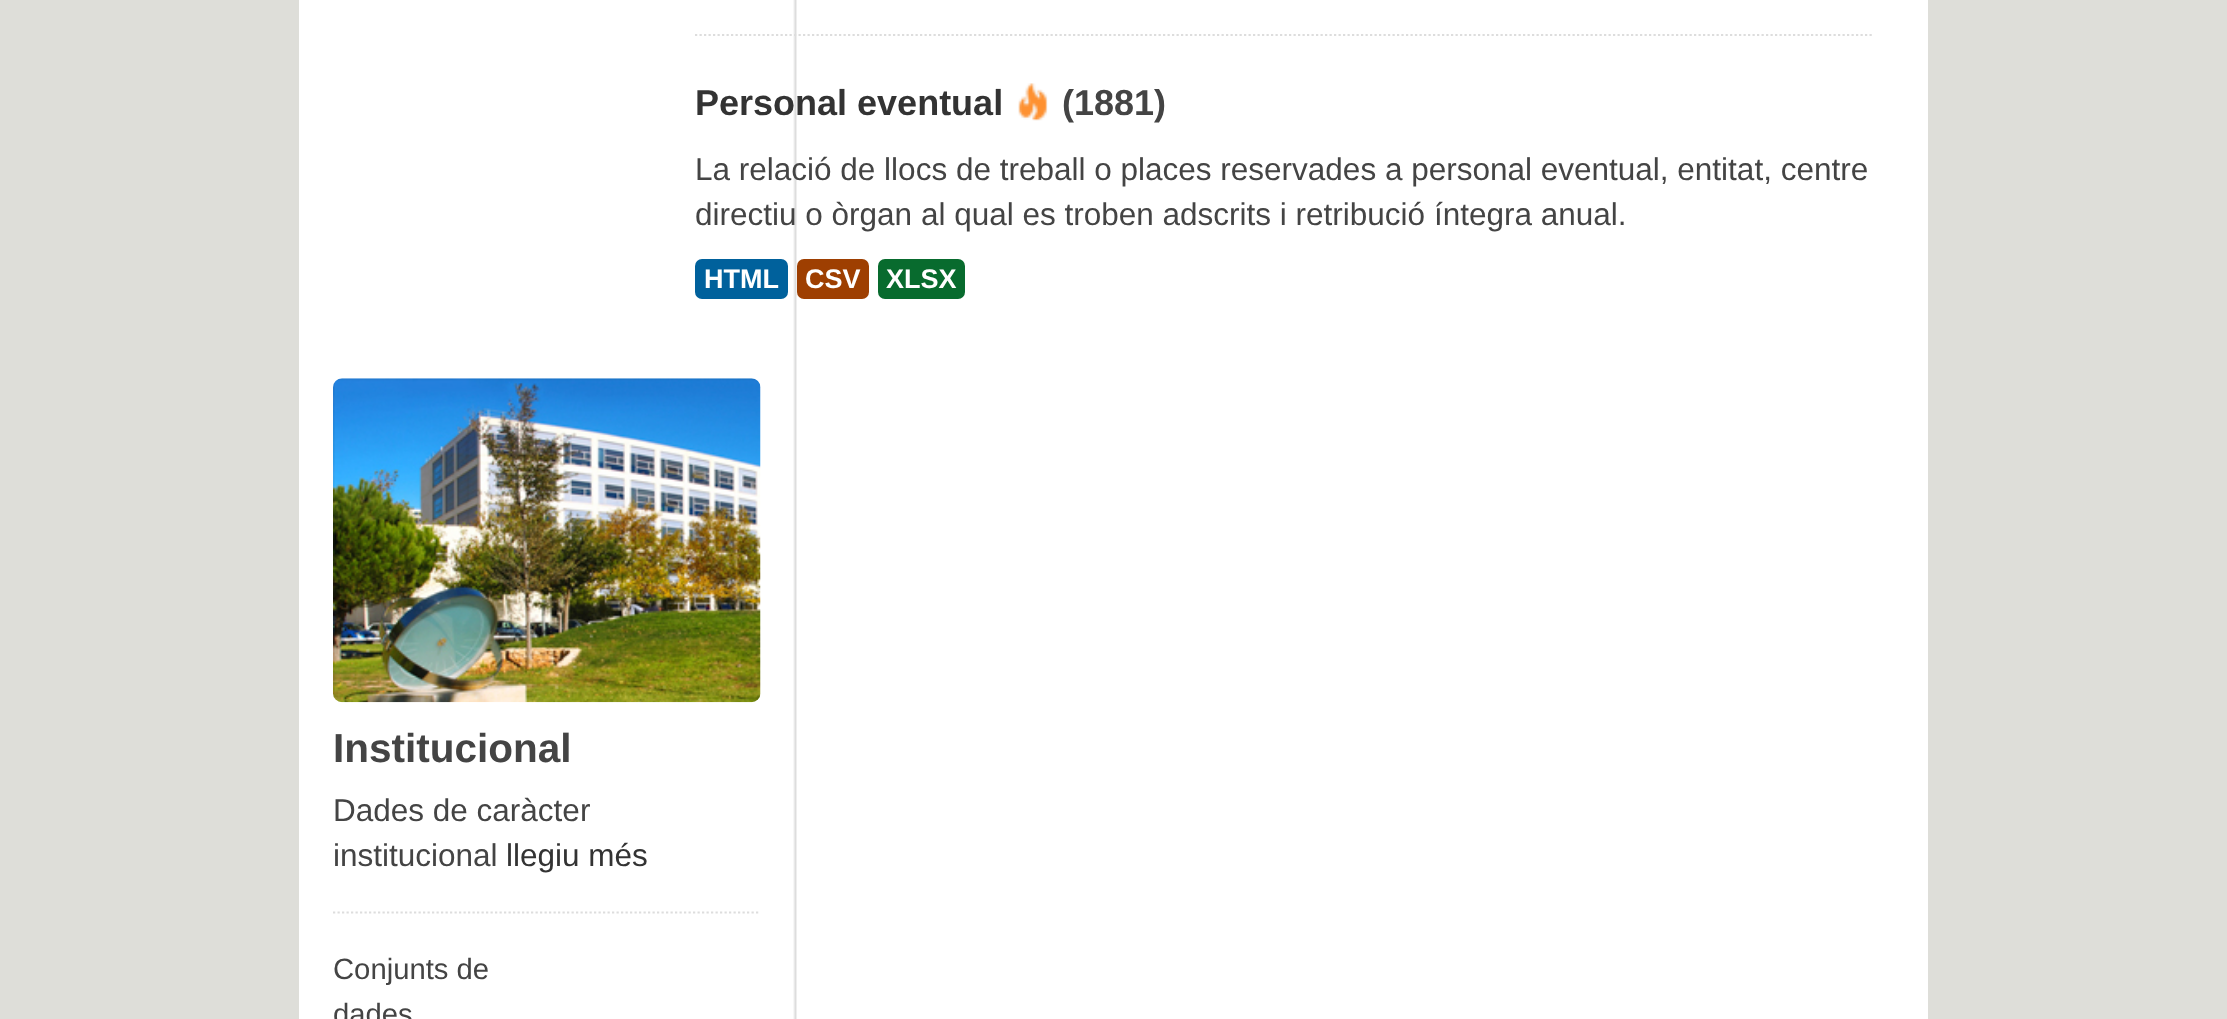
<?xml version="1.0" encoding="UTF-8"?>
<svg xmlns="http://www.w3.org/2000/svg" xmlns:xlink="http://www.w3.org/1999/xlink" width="2227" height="1019">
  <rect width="100%" height="100%" fill="#deded9" />
  <rect x="299" width="1629" height="1019" fill="#ffffff" />
  <image x="793" y="0" width="4" height="1019" xlink:href="image1.png" />
  <path d="M 695 35 h 1177" fill="none" stroke="#dddddd" stroke-width="2.2" stroke-dasharray="2.25 2.25" />
  <image x="1018" y="83" width="30" height="38" xlink:href="image2.png" />
  <rect x="695" y="259" width="93" height="40" rx="7" fill="#00619c" />
  <rect x="797" y="259" width="72" height="40" rx="7" fill="#9e3f01" />
  <rect x="878" y="259" width="87" height="40" rx="7" fill="#086b2e" />
  <image x="333" y="378" width="428" height="325" xlink:href="image3.png" />
  <path d="M 333 912.5 h 427.5" fill="none" stroke="#dddddd" stroke-width="2.2" stroke-dasharray="2.25 2.25" />
  <text x="695" y="115" style="font-family: Liberation Sans; font-size: 36px; font-weight: bold; fill: #333333">Personal eventual</text>
  <text x="1062" y="115" style="font-family: Liberation Sans; font-size: 36px; font-weight: bold; fill: #444444">(1881)</text>
  <text x="695" y="180" style="font-family: Liberation Sans; font-size: 31.5px; fill: #444444">La relació de llocs de treball o places reservades a personal eventual, entitat, centre</text>
  <text x="695" y="225" style="font-family: Liberation Sans; font-size: 31.5px; fill: #444444">directiu o òrgan al qual es troben adscrits i retribució íntegra anual.</text>
  <text x="704" y="288" style="font-family: Liberation Sans; font-size: 27px; font-weight: bold; fill: #ffffff">HTML</text>
  <text x="805" y="288" style="font-family: Liberation Sans; font-size: 27px; font-weight: bold; fill: #ffffff">CSV</text>
  <text x="886" y="288" style="font-family: Liberation Sans; font-size: 27px; font-weight: bold; fill: #ffffff">XLSX</text>
  <text x="333" y="762" style="font-family: Liberation Sans; font-size: 40.5px; font-weight: bold; fill: #444444">Institucional</text>
  <text x="333" y="821" style="font-family: Liberation Sans; font-size: 31.5px; fill: #444444">Dades de caràcter</text>
  <text x="333" y="866" style="font-family: Liberation Sans; font-size: 31.5px; fill: #444444">institucional</text>
  <text x="506" y="866" style="font-family: Liberation Sans; font-size: 31.5px; fill: #333333">llegiu més</text>
  <text x="333" y="979" style="font-family: Liberation Sans; font-size: 29.25px; fill: #444444">Conjunts de</text>
  <text x="333" y="1024" style="font-family: Liberation Sans; font-size: 29.25px; fill: #444444">dades</text>
</svg>
